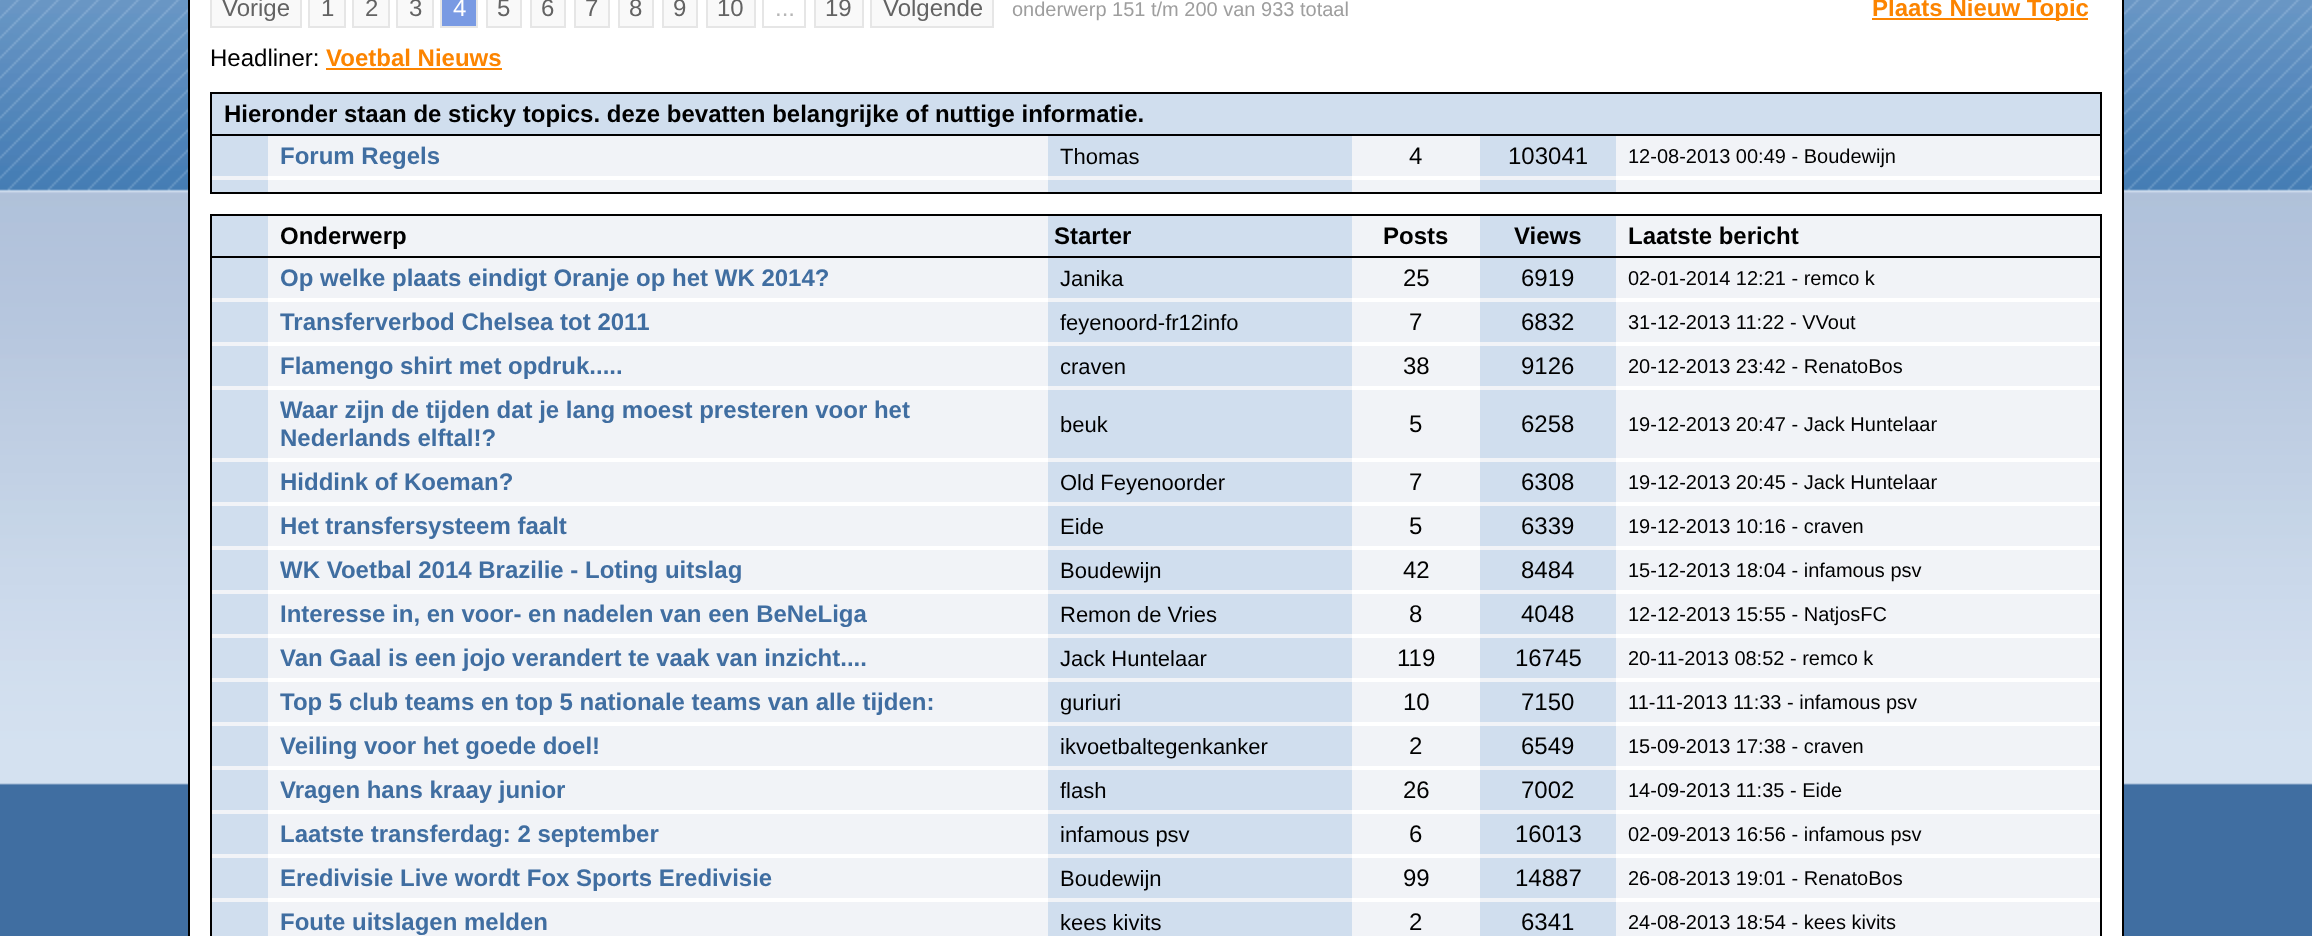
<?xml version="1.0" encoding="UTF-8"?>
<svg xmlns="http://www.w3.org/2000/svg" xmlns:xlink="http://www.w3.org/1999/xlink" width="2312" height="936">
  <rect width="100%" height="100%" fill="#406ea1" />
  <image x="0" y="0" width="2312" height="785" xlink:href="image1.png" />
  <rect x="188" width="2" height="936" fill="#000000" />
  <rect x="190" width="1932" height="936" fill="#ffffff" />
  <rect x="211" y="-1" width="90" height="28" fill="#f9f9f9" stroke="#e6e6e6" stroke-width="2" />
  <rect x="309" y="-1" width="36" height="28" fill="#f9f9f9" stroke="#e6e6e6" stroke-width="2" />
  <rect x="353" y="-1" width="36" height="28" fill="#f9f9f9" stroke="#e6e6e6" stroke-width="2" />
  <rect x="397" y="-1" width="36" height="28" fill="#f9f9f9" stroke="#e6e6e6" stroke-width="2" />
  <rect x="441" y="-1" width="36" height="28" fill="#799ae3" stroke="#e6e6e6" stroke-width="2" />
  <rect x="487" y="-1" width="34" height="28" fill="#f9f9f9" stroke="#e6e6e6" stroke-width="2" />
  <rect x="531" y="-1" width="34" height="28" fill="#f9f9f9" stroke="#e6e6e6" stroke-width="2" />
  <rect x="575" y="-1" width="34" height="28" fill="#f9f9f9" stroke="#e6e6e6" stroke-width="2" />
  <rect x="619" y="-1" width="34" height="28" fill="#f9f9f9" stroke="#e6e6e6" stroke-width="2" />
  <rect x="663" y="-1" width="34" height="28" fill="#f9f9f9" stroke="#e6e6e6" stroke-width="2" />
  <rect x="707" y="-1" width="48" height="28" fill="#f9f9f9" stroke="#e6e6e6" stroke-width="2" />
  <rect x="763" y="-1" width="42" height="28" fill="none" stroke="#e6e6e6" stroke-width="2" />
  <rect x="815" y="-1" width="48" height="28" fill="#f9f9f9" stroke="#e6e6e6" stroke-width="2" />
  <rect x="871" y="-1" width="122" height="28" fill="#f9f9f9" stroke="#e6e6e6" stroke-width="2" />
  <rect x="1872" y="18" width="216" height="2" fill="#fc8400" />
  <rect x="326" y="68" width="176" height="2" fill="#fc8400" />
  <rect x="212" y="136" width="1888" height="800" fill="#f1f3f7" />
  <rect x="210" y="92" width="1892" height="2" fill="#000000" />
  <rect x="210" y="94" width="2" height="40" fill="#000000" />
  <rect x="212" y="94" width="1888" height="40" fill="#d0deee" />
  <rect x="2100" y="94" width="2" height="40" fill="#000000" />
  <rect x="210" y="134" width="1892" height="2" fill="#000000" />
  <rect x="210" y="136" width="2" height="56" fill="#000000" />
  <rect x="212" y="136" width="56" height="40" fill="#d0deee" />
  <rect x="1048" y="136" width="304" height="40" fill="#d0deee" />
  <rect x="1480" y="136" width="136" height="40" fill="#d0deee" />
  <rect x="2100" y="136" width="2" height="56" fill="#000000" />
  <rect x="268" y="176" width="780" height="4" fill="#ffffff" />
  <rect x="1352" y="176" width="128" height="4" fill="#ffffff" />
  <rect x="1616" y="176" width="484" height="4" fill="#ffffff" />
  <rect x="212" y="180" width="56" height="12" fill="#d0deee" />
  <rect x="1048" y="180" width="304" height="12" fill="#d0deee" />
  <rect x="1480" y="180" width="136" height="12" fill="#d0deee" />
  <rect x="210" y="192" width="1892" height="2" fill="#000000" />
  <rect x="212" y="194" width="1888" height="20" fill="#ffffff" />
  <rect x="210" y="214" width="1892" height="2" fill="#000000" />
  <rect x="210" y="216" width="2" height="40" fill="#000000" />
  <rect x="212" y="216" width="56" height="40" fill="#d0deee" />
  <rect x="1048" y="216" width="304" height="40" fill="#d0deee" />
  <rect x="1480" y="216" width="136" height="40" fill="#d0deee" />
  <rect x="2100" y="216" width="2" height="40" fill="#000000" />
  <rect x="210" y="256" width="1892" height="2" fill="#000000" />
  <rect x="210" y="258" width="2" height="678" fill="#000000" />
  <rect x="212" y="258" width="56" height="40" fill="#d0deee" />
  <rect x="1048" y="258" width="304" height="40" fill="#d0deee" />
  <rect x="1480" y="258" width="136" height="40" fill="#d0deee" />
  <rect x="2100" y="258" width="2" height="678" fill="#000000" />
  <rect x="268" y="298" width="780" height="4" fill="#ffffff" />
  <rect x="1352" y="298" width="128" height="4" fill="#ffffff" />
  <rect x="1616" y="298" width="484" height="4" fill="#ffffff" />
  <rect x="212" y="302" width="56" height="40" fill="#d0deee" />
  <rect x="1048" y="302" width="304" height="40" fill="#d0deee" />
  <rect x="1480" y="302" width="136" height="40" fill="#d0deee" />
  <rect x="268" y="342" width="780" height="4" fill="#ffffff" />
  <rect x="1352" y="342" width="128" height="4" fill="#ffffff" />
  <rect x="1616" y="342" width="484" height="4" fill="#ffffff" />
  <rect x="212" y="346" width="56" height="40" fill="#d0deee" />
  <rect x="1048" y="346" width="304" height="40" fill="#d0deee" />
  <rect x="1480" y="346" width="136" height="40" fill="#d0deee" />
  <rect x="268" y="386" width="780" height="4" fill="#ffffff" />
  <rect x="1352" y="386" width="128" height="4" fill="#ffffff" />
  <rect x="1616" y="386" width="484" height="4" fill="#ffffff" />
  <rect x="212" y="390" width="56" height="68" fill="#d0deee" />
  <rect x="1048" y="390" width="304" height="68" fill="#d0deee" />
  <rect x="1480" y="390" width="136" height="68" fill="#d0deee" />
  <rect x="268" y="458" width="780" height="4" fill="#ffffff" />
  <rect x="1352" y="458" width="128" height="4" fill="#ffffff" />
  <rect x="1616" y="458" width="484" height="4" fill="#ffffff" />
  <rect x="212" y="462" width="56" height="40" fill="#d0deee" />
  <rect x="1048" y="462" width="304" height="40" fill="#d0deee" />
  <rect x="1480" y="462" width="136" height="40" fill="#d0deee" />
  <rect x="268" y="502" width="780" height="4" fill="#ffffff" />
  <rect x="1352" y="502" width="128" height="4" fill="#ffffff" />
  <rect x="1616" y="502" width="484" height="4" fill="#ffffff" />
  <rect x="212" y="506" width="56" height="40" fill="#d0deee" />
  <rect x="1048" y="506" width="304" height="40" fill="#d0deee" />
  <rect x="1480" y="506" width="136" height="40" fill="#d0deee" />
  <rect x="268" y="546" width="780" height="4" fill="#ffffff" />
  <rect x="1352" y="546" width="128" height="4" fill="#ffffff" />
  <rect x="1616" y="546" width="484" height="4" fill="#ffffff" />
  <rect x="212" y="550" width="56" height="40" fill="#d0deee" />
  <rect x="1048" y="550" width="304" height="40" fill="#d0deee" />
  <rect x="1480" y="550" width="136" height="40" fill="#d0deee" />
  <rect x="268" y="590" width="780" height="4" fill="#ffffff" />
  <rect x="1352" y="590" width="128" height="4" fill="#ffffff" />
  <rect x="1616" y="590" width="484" height="4" fill="#ffffff" />
  <rect x="212" y="594" width="56" height="40" fill="#d0deee" />
  <rect x="1048" y="594" width="304" height="40" fill="#d0deee" />
  <rect x="1480" y="594" width="136" height="40" fill="#d0deee" />
  <rect x="268" y="634" width="780" height="4" fill="#ffffff" />
  <rect x="1352" y="634" width="128" height="4" fill="#ffffff" />
  <rect x="1616" y="634" width="484" height="4" fill="#ffffff" />
  <rect x="212" y="638" width="56" height="40" fill="#d0deee" />
  <rect x="1048" y="638" width="304" height="40" fill="#d0deee" />
  <rect x="1480" y="638" width="136" height="40" fill="#d0deee" />
  <rect x="268" y="678" width="780" height="4" fill="#ffffff" />
  <rect x="1352" y="678" width="128" height="4" fill="#ffffff" />
  <rect x="1616" y="678" width="484" height="4" fill="#ffffff" />
  <rect x="212" y="682" width="56" height="40" fill="#d0deee" />
  <rect x="1048" y="682" width="304" height="40" fill="#d0deee" />
  <rect x="1480" y="682" width="136" height="40" fill="#d0deee" />
  <rect x="268" y="722" width="780" height="4" fill="#ffffff" />
  <rect x="1352" y="722" width="128" height="4" fill="#ffffff" />
  <rect x="1616" y="722" width="484" height="4" fill="#ffffff" />
  <rect x="212" y="726" width="56" height="40" fill="#d0deee" />
  <rect x="1048" y="726" width="304" height="40" fill="#d0deee" />
  <rect x="1480" y="726" width="136" height="40" fill="#d0deee" />
  <rect x="268" y="766" width="780" height="4" fill="#ffffff" />
  <rect x="1352" y="766" width="128" height="4" fill="#ffffff" />
  <rect x="1616" y="766" width="484" height="4" fill="#ffffff" />
  <rect x="212" y="770" width="56" height="40" fill="#d0deee" />
  <rect x="1048" y="770" width="304" height="40" fill="#d0deee" />
  <rect x="1480" y="770" width="136" height="40" fill="#d0deee" />
  <rect x="268" y="810" width="780" height="4" fill="#ffffff" />
  <rect x="1352" y="810" width="128" height="4" fill="#ffffff" />
  <rect x="1616" y="810" width="484" height="4" fill="#ffffff" />
  <rect x="212" y="814" width="56" height="40" fill="#d0deee" />
  <rect x="1048" y="814" width="304" height="40" fill="#d0deee" />
  <rect x="1480" y="814" width="136" height="40" fill="#d0deee" />
  <rect x="268" y="854" width="780" height="4" fill="#ffffff" />
  <rect x="1352" y="854" width="128" height="4" fill="#ffffff" />
  <rect x="1616" y="854" width="484" height="4" fill="#ffffff" />
  <rect x="212" y="858" width="56" height="40" fill="#d0deee" />
  <rect x="1048" y="858" width="304" height="40" fill="#d0deee" />
  <rect x="1480" y="858" width="136" height="40" fill="#d0deee" />
  <rect x="268" y="898" width="780" height="4" fill="#ffffff" />
  <rect x="1352" y="898" width="128" height="4" fill="#ffffff" />
  <rect x="1616" y="898" width="484" height="4" fill="#ffffff" />
  <rect x="212" y="902" width="56" height="34" fill="#d0deee" />
  <rect x="1048" y="902" width="304" height="34" fill="#d0deee" />
  <rect x="1480" y="902" width="136" height="34" fill="#d0deee" />
  <rect x="2122" width="2" height="936" fill="#000000" />
  <text x="222" y="16" style="font-family: Liberation Sans; font-size: 24px; fill: #636363">Vorige</text>
  <text x="321" y="16" style="font-family: Liberation Sans; font-size: 24px; fill: #636363">1</text>
  <text x="365" y="16" style="font-family: Liberation Sans; font-size: 24px; fill: #636363">2</text>
  <text x="409" y="16" style="font-family: Liberation Sans; font-size: 24px; fill: #636363">3</text>
  <text x="453" y="16" style="font-family: Liberation Sans; font-size: 24px; fill: #ffffff">4</text>
  <text x="497" y="16" style="font-family: Liberation Sans; font-size: 24px; fill: #636363">5</text>
  <text x="541" y="16" style="font-family: Liberation Sans; font-size: 24px; fill: #636363">6</text>
  <text x="585" y="16" style="font-family: Liberation Sans; font-size: 24px; fill: #636363">7</text>
  <text x="629" y="16" style="font-family: Liberation Sans; font-size: 24px; fill: #636363">8</text>
  <text x="673" y="16" style="font-family: Liberation Sans; font-size: 24px; fill: #636363">9</text>
  <text x="717" y="16" style="font-family: Liberation Sans; font-size: 24px; fill: #636363">10</text>
  <text x="775" y="16" style="font-family: Liberation Sans; font-size: 24px; fill: #b6b6b6">...</text>
  <text x="825" y="16" style="font-family: Liberation Sans; font-size: 24px; fill: #636363">19</text>
  <text x="883" y="16" style="font-family: Liberation Sans; font-size: 24px; fill: #636363">Volgende</text>
  <text x="1012" y="16" style="font-family: Liberation Sans; font-size: 20px; fill: #9e9e9e">onderwerp 151 t/m 200 van 933 totaal</text>
  <text x="1872" y="16" style="font-family: Liberation Sans; font-size: 24px; font-weight: bold; fill: #fc8400">Plaats Nieuw Topic</text>
  <text x="210" y="66" style="font-family: Liberation Sans; font-size: 24px; fill: #000000">Headliner:</text>
  <text x="326" y="66" style="font-family: Liberation Sans; font-size: 24px; font-weight: bold; fill: #fc8400">Voetbal Nieuws</text>
  <text x="224" y="122" style="font-family: Liberation Sans; font-size: 24px; font-weight: bold; fill: #000000">Hieronder staan de sticky topics. deze bevatten belangrijke of nuttige informatie.</text>
  <text x="280" y="164" style="font-family: Liberation Sans; font-size: 24px; font-weight: bold; fill: #406ea1">Forum Regels</text>
  <text x="1060" y="164" style="font-family: Liberation Sans; font-size: 22px; fill: #000000">Thomas</text>
  <text x="1409" y="164" style="font-family: Liberation Sans; font-size: 24px; fill: #000000">4</text>
  <text x="1508" y="164" style="font-family: Liberation Sans; font-size: 24px; fill: #000000">103041</text>
  <text x="1628" y="163" style="font-family: Liberation Sans; font-size: 20px; fill: #000000">12-08-2013 00:49 - Boudewijn</text>
  <text x="280" y="244" style="font-family: Liberation Sans; font-size: 24px; font-weight: bold; fill: #000000">Onderwerp</text>
  <text x="1054" y="244" style="font-family: Liberation Sans; font-size: 24px; font-weight: bold; fill: #000000">Starter</text>
  <text x="1383" y="244" style="font-family: Liberation Sans; font-size: 24px; font-weight: bold; fill: #000000">Posts</text>
  <text x="1514" y="244" style="font-family: Liberation Sans; font-size: 24px; font-weight: bold; fill: #000000">Views</text>
  <text x="1628" y="244" style="font-family: Liberation Sans; font-size: 24px; font-weight: bold; fill: #000000">Laatste bericht</text>
  <text x="280" y="286" style="font-family: Liberation Sans; font-size: 24px; font-weight: bold; fill: #406ea1">Op welke plaats eindigt Oranje op het WK 2014?</text>
  <text x="1060" y="286" style="font-family: Liberation Sans; font-size: 22px; fill: #000000">Janika</text>
  <text x="1403" y="286" style="font-family: Liberation Sans; font-size: 24px; fill: #000000">25</text>
  <text x="1521" y="286" style="font-family: Liberation Sans; font-size: 24px; fill: #000000">6919</text>
  <text x="1628" y="285" style="font-family: Liberation Sans; font-size: 20px; fill: #000000">02-01-2014 12:21 - remco k</text>
  <text x="280" y="330" style="font-family: Liberation Sans; font-size: 24px; font-weight: bold; fill: #406ea1">Transferverbod Chelsea tot 2011</text>
  <text x="1060" y="330" style="font-family: Liberation Sans; font-size: 22px; fill: #000000">feyenoord-fr12info</text>
  <text x="1409" y="330" style="font-family: Liberation Sans; font-size: 24px; fill: #000000">7</text>
  <text x="1521" y="330" style="font-family: Liberation Sans; font-size: 24px; fill: #000000">6832</text>
  <text x="1628" y="329" style="font-family: Liberation Sans; font-size: 20px; fill: #000000">31-12-2013 11:22 - VVout</text>
  <text x="280" y="374" style="font-family: Liberation Sans; font-size: 24px; font-weight: bold; fill: #406ea1">Flamengo shirt met opdruk.....</text>
  <text x="1060" y="374" style="font-family: Liberation Sans; font-size: 22px; fill: #000000">craven</text>
  <text x="1403" y="374" style="font-family: Liberation Sans; font-size: 24px; fill: #000000">38</text>
  <text x="1521" y="374" style="font-family: Liberation Sans; font-size: 24px; fill: #000000">9126</text>
  <text x="1628" y="373" style="font-family: Liberation Sans; font-size: 20px; fill: #000000">20-12-2013 23:42 - RenatoBos</text>
  <text x="280" y="418" style="font-family: Liberation Sans; font-size: 24px; font-weight: bold; fill: #406ea1">Waar zijn de tijden dat je lang moest presteren voor het</text>
  <text x="280" y="446" style="font-family: Liberation Sans; font-size: 24px; font-weight: bold; fill: #406ea1">Nederlands elftal!?</text>
  <text x="1060" y="432" style="font-family: Liberation Sans; font-size: 22px; fill: #000000">beuk</text>
  <text x="1409" y="432" style="font-family: Liberation Sans; font-size: 24px; fill: #000000">5</text>
  <text x="1521" y="432" style="font-family: Liberation Sans; font-size: 24px; fill: #000000">6258</text>
  <text x="1628" y="431" style="font-family: Liberation Sans; font-size: 20px; fill: #000000">19-12-2013 20:47 - Jack Huntelaar</text>
  <text x="280" y="490" style="font-family: Liberation Sans; font-size: 24px; font-weight: bold; fill: #406ea1">Hiddink of Koeman?</text>
  <text x="1060" y="490" style="font-family: Liberation Sans; font-size: 22px; fill: #000000">Old Feyenoorder</text>
  <text x="1409" y="490" style="font-family: Liberation Sans; font-size: 24px; fill: #000000">7</text>
  <text x="1521" y="490" style="font-family: Liberation Sans; font-size: 24px; fill: #000000">6308</text>
  <text x="1628" y="489" style="font-family: Liberation Sans; font-size: 20px; fill: #000000">19-12-2013 20:45 - Jack Huntelaar</text>
  <text x="280" y="534" style="font-family: Liberation Sans; font-size: 24px; font-weight: bold; fill: #406ea1">Het transfersysteem faalt</text>
  <text x="1060" y="534" style="font-family: Liberation Sans; font-size: 22px; fill: #000000">Eide</text>
  <text x="1409" y="534" style="font-family: Liberation Sans; font-size: 24px; fill: #000000">5</text>
  <text x="1521" y="534" style="font-family: Liberation Sans; font-size: 24px; fill: #000000">6339</text>
  <text x="1628" y="533" style="font-family: Liberation Sans; font-size: 20px; fill: #000000">19-12-2013 10:16 - craven</text>
  <text x="280" y="578" style="font-family: Liberation Sans; font-size: 24px; font-weight: bold; fill: #406ea1">WK Voetbal 2014 Brazilie - Loting uitslag</text>
  <text x="1060" y="578" style="font-family: Liberation Sans; font-size: 22px; fill: #000000">Boudewijn</text>
  <text x="1403" y="578" style="font-family: Liberation Sans; font-size: 24px; fill: #000000">42</text>
  <text x="1521" y="578" style="font-family: Liberation Sans; font-size: 24px; fill: #000000">8484</text>
  <text x="1628" y="577" style="font-family: Liberation Sans; font-size: 20px; fill: #000000">15-12-2013 18:04 - infamous psv</text>
  <text x="280" y="622" style="font-family: Liberation Sans; font-size: 24px; font-weight: bold; fill: #406ea1">Interesse in, en voor- en nadelen van een BeNeLiga</text>
  <text x="1060" y="622" style="font-family: Liberation Sans; font-size: 22px; fill: #000000">Remon de Vries</text>
  <text x="1409" y="622" style="font-family: Liberation Sans; font-size: 24px; fill: #000000">8</text>
  <text x="1521" y="622" style="font-family: Liberation Sans; font-size: 24px; fill: #000000">4048</text>
  <text x="1628" y="621" style="font-family: Liberation Sans; font-size: 20px; fill: #000000">12-12-2013 15:55 - NatjosFC</text>
  <text x="280" y="666" style="font-family: Liberation Sans; font-size: 24px; font-weight: bold; fill: #406ea1">Van Gaal is een jojo verandert te vaak van inzicht....</text>
  <text x="1060" y="666" style="font-family: Liberation Sans; font-size: 22px; fill: #000000">Jack Huntelaar</text>
  <text x="1397" y="666" style="font-family: Liberation Sans; font-size: 24px; fill: #000000">119</text>
  <text x="1515" y="666" style="font-family: Liberation Sans; font-size: 24px; fill: #000000">16745</text>
  <text x="1628" y="665" style="font-family: Liberation Sans; font-size: 20px; fill: #000000">20-11-2013 08:52 - remco k</text>
  <text x="280" y="710" style="font-family: Liberation Sans; font-size: 24px; font-weight: bold; fill: #406ea1">Top 5 club teams en top 5 nationale teams van alle tijden:</text>
  <text x="1060" y="710" style="font-family: Liberation Sans; font-size: 22px; fill: #000000">guriuri</text>
  <text x="1403" y="710" style="font-family: Liberation Sans; font-size: 24px; fill: #000000">10</text>
  <text x="1521" y="710" style="font-family: Liberation Sans; font-size: 24px; fill: #000000">7150</text>
  <text x="1628" y="709" style="font-family: Liberation Sans; font-size: 20px; fill: #000000">11-11-2013 11:33 - infamous psv</text>
  <text x="280" y="754" style="font-family: Liberation Sans; font-size: 24px; font-weight: bold; fill: #406ea1">Veiling voor het goede doel!</text>
  <text x="1060" y="754" style="font-family: Liberation Sans; font-size: 22px; fill: #000000">ikvoetbaltegenkanker</text>
  <text x="1409" y="754" style="font-family: Liberation Sans; font-size: 24px; fill: #000000">2</text>
  <text x="1521" y="754" style="font-family: Liberation Sans; font-size: 24px; fill: #000000">6549</text>
  <text x="1628" y="753" style="font-family: Liberation Sans; font-size: 20px; fill: #000000">15-09-2013 17:38 - craven</text>
  <text x="280" y="798" style="font-family: Liberation Sans; font-size: 24px; font-weight: bold; fill: #406ea1">Vragen hans kraay junior</text>
  <text x="1060" y="798" style="font-family: Liberation Sans; font-size: 22px; fill: #000000">flash</text>
  <text x="1403" y="798" style="font-family: Liberation Sans; font-size: 24px; fill: #000000">26</text>
  <text x="1521" y="798" style="font-family: Liberation Sans; font-size: 24px; fill: #000000">7002</text>
  <text x="1628" y="797" style="font-family: Liberation Sans; font-size: 20px; fill: #000000">14-09-2013 11:35 - Eide</text>
  <text x="280" y="842" style="font-family: Liberation Sans; font-size: 24px; font-weight: bold; fill: #406ea1">Laatste transferdag: 2 september</text>
  <text x="1060" y="842" style="font-family: Liberation Sans; font-size: 22px; fill: #000000">infamous psv</text>
  <text x="1409" y="842" style="font-family: Liberation Sans; font-size: 24px; fill: #000000">6</text>
  <text x="1515" y="842" style="font-family: Liberation Sans; font-size: 24px; fill: #000000">16013</text>
  <text x="1628" y="841" style="font-family: Liberation Sans; font-size: 20px; fill: #000000">02-09-2013 16:56 - infamous psv</text>
  <text x="280" y="886" style="font-family: Liberation Sans; font-size: 24px; font-weight: bold; fill: #406ea1">Eredivisie Live wordt Fox Sports Eredivisie</text>
  <text x="1060" y="886" style="font-family: Liberation Sans; font-size: 22px; fill: #000000">Boudewijn</text>
  <text x="1403" y="886" style="font-family: Liberation Sans; font-size: 24px; fill: #000000">99</text>
  <text x="1515" y="886" style="font-family: Liberation Sans; font-size: 24px; fill: #000000">14887</text>
  <text x="1628" y="885" style="font-family: Liberation Sans; font-size: 20px; fill: #000000">26-08-2013 19:01 - RenatoBos</text>
  <text x="280" y="930" style="font-family: Liberation Sans; font-size: 24px; font-weight: bold; fill: #406ea1">Foute uitslagen melden</text>
  <text x="1060" y="930" style="font-family: Liberation Sans; font-size: 22px; fill: #000000">kees kivits</text>
  <text x="1409" y="930" style="font-family: Liberation Sans; font-size: 24px; fill: #000000">2</text>
  <text x="1521" y="930" style="font-family: Liberation Sans; font-size: 24px; fill: #000000">6341</text>
  <text x="1628" y="929" style="font-family: Liberation Sans; font-size: 20px; fill: #000000">24-08-2013 18:54 - kees kivits</text>
</svg>
